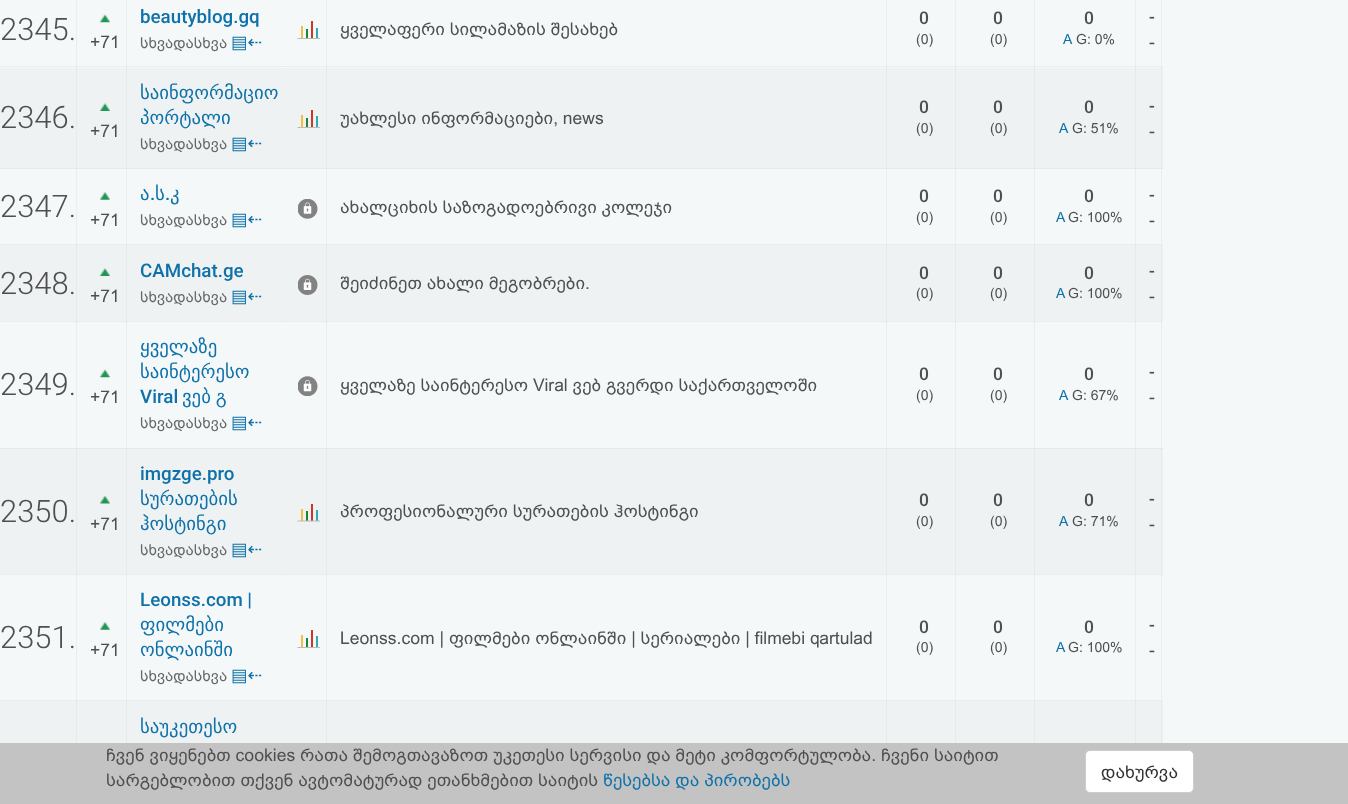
<?xml version="1.0" encoding="UTF-8"?>
<svg xmlns="http://www.w3.org/2000/svg" xmlns:xlink="http://www.w3.org/1999/xlink" width="1348" height="804">
  <rect width="100%" height="100%" fill="#f4f8f9" />
  <rect x="76" width="1" height="68" fill="#ebeeee" />
  <rect x="126" width="1" height="68" fill="#ebeeee" />
  <rect x="326" width="1" height="68" fill="#ebeeee" />
  <rect x="886" width="1" height="68" fill="#ebeeee" />
  <rect x="955" width="1" height="68" fill="#ebeeee" />
  <rect x="1034" width="1" height="68" fill="#ebeeee" />
  <rect x="1135" width="1" height="68" fill="#ebeeee" />
  <rect x="1161" width="1" height="68" fill="#ebeeee" />
  <rect x="76" y="66" width="1" height="2" fill="#e6e8e8" />
  <rect y="66" width="78" height="1" fill="#ebeeee" />
  <rect x="126" y="66" width="1" height="2" fill="#e6e8e8" />
  <rect x="76" y="66" width="209" height="1" fill="#ebeeee" />
  <rect x="76" y="66" width="2" height="1" fill="#e6e8e8" />
  <rect x="76" y="66" width="1" height="1" fill="#e1e1e1" />
  <rect x="126" y="66" width="2" height="1" fill="#e6e8e8" />
  <rect x="126" y="66" width="1" height="1" fill="#e1e1e1" />
  <rect x="326" y="66" width="1" height="2" fill="#e6e8e8" />
  <rect x="284" y="66" width="44" height="1" fill="#ebeeee" />
  <rect x="284" y="66" width="1" height="1" fill="#e6e8e8" />
  <rect x="886" y="66" width="1" height="2" fill="#e6e8e8" />
  <rect x="326" y="66" width="562" height="1" fill="#ebeeee" />
  <rect x="326" y="66" width="2" height="1" fill="#e6e8e8" />
  <rect x="326" y="66" width="1" height="1" fill="#e1e1e1" />
  <rect x="955" y="66" width="1" height="2" fill="#e6e8e8" />
  <rect x="886" y="66" width="70" height="1" fill="#ebeeee" />
  <rect x="886" y="66" width="2" height="1" fill="#e6e8e8" />
  <rect x="886" y="66" width="1" height="1" fill="#e1e1e1" />
  <rect x="1034" y="66" width="1" height="2" fill="#e6e8e8" />
  <rect x="955" y="66" width="80" height="1" fill="#ebeeee" />
  <rect x="955" y="66" width="1" height="1" fill="#e1e1e1" />
  <rect x="1135" y="66" width="1" height="2" fill="#e6e8e8" />
  <rect x="1034" y="66" width="102" height="1" fill="#ebeeee" />
  <rect x="1034" y="66" width="1" height="1" fill="#e1e1e1" />
  <rect x="1161" y="66" width="1" height="2" fill="#e6e8e8" />
  <rect x="76" y="168" width="1" height="77" fill="#ebeeee" />
  <rect x="126" y="168" width="1" height="77" fill="#ebeeee" />
  <rect x="326" y="168" width="1" height="77" fill="#ebeeee" />
  <rect x="886" y="168" width="1" height="77" fill="#ebeeee" />
  <rect x="955" y="168" width="1" height="77" fill="#ebeeee" />
  <rect x="1034" y="168" width="1" height="77" fill="#ebeeee" />
  <rect x="1135" y="168" width="1" height="77" fill="#ebeeee" />
  <rect x="1161" y="168" width="1" height="77" fill="#ebeeee" />
  <rect y="244" width="1163" height="1" fill="#ebeeee" />
  <rect x="76" y="244" width="2" height="1" fill="#e6e8e8" />
  <rect x="76" y="244" width="1" height="1" fill="#e1e1e1" />
  <rect x="126" y="244" width="2" height="1" fill="#e6e8e8" />
  <rect x="126" y="244" width="1" height="1" fill="#e1e1e1" />
  <rect x="284" y="244" width="1" height="1" fill="#e6e8e8" />
  <rect x="326" y="244" width="2" height="1" fill="#e6e8e8" />
  <rect x="326" y="244" width="1" height="1" fill="#e1e1e1" />
  <rect x="886" y="244" width="2" height="1" fill="#e6e8e8" />
  <rect x="886" y="244" width="1" height="1" fill="#e1e1e1" />
  <rect x="955" y="244" width="1" height="1" fill="#e1e1e1" />
  <rect x="1034" y="244" width="1" height="1" fill="#e1e1e1" />
  <rect x="76" y="321" width="1" height="128" fill="#ebeeee" />
  <rect x="76" y="321" width="1" height="2" fill="#e6e8e8" />
  <rect y="321" width="78" height="1" fill="#ebeeee" />
  <rect x="126" y="321" width="1" height="128" fill="#ebeeee" />
  <rect x="126" y="321" width="1" height="2" fill="#e6e8e8" />
  <rect x="76" y="321" width="209" height="1" fill="#ebeeee" />
  <rect x="76" y="321" width="2" height="1" fill="#e6e8e8" />
  <rect x="76" y="321" width="1" height="1" fill="#e1e1e1" />
  <rect x="126" y="321" width="2" height="1" fill="#e6e8e8" />
  <rect x="126" y="321" width="1" height="1" fill="#e1e1e1" />
  <rect x="326" y="321" width="1" height="128" fill="#ebeeee" />
  <rect x="326" y="321" width="1" height="2" fill="#e6e8e8" />
  <rect x="284" y="321" width="44" height="1" fill="#ebeeee" />
  <rect x="284" y="321" width="1" height="1" fill="#e6e8e8" />
  <rect x="886" y="321" width="1" height="128" fill="#ebeeee" />
  <rect x="886" y="321" width="1" height="2" fill="#e6e8e8" />
  <rect x="326" y="321" width="562" height="1" fill="#ebeeee" />
  <rect x="326" y="321" width="2" height="1" fill="#e6e8e8" />
  <rect x="326" y="321" width="1" height="1" fill="#e1e1e1" />
  <rect x="955" y="321" width="1" height="128" fill="#ebeeee" />
  <rect x="955" y="321" width="1" height="2" fill="#e6e8e8" />
  <rect x="886" y="321" width="70" height="1" fill="#ebeeee" />
  <rect x="886" y="321" width="2" height="1" fill="#e6e8e8" />
  <rect x="886" y="321" width="1" height="1" fill="#e1e1e1" />
  <rect x="1034" y="321" width="1" height="128" fill="#ebeeee" />
  <rect x="1034" y="321" width="1" height="2" fill="#e6e8e8" />
  <rect x="955" y="321" width="80" height="1" fill="#ebeeee" />
  <rect x="955" y="321" width="1" height="1" fill="#e1e1e1" />
  <rect x="1135" y="321" width="1" height="128" fill="#ebeeee" />
  <rect x="1135" y="321" width="1" height="2" fill="#e6e8e8" />
  <rect x="1034" y="321" width="102" height="1" fill="#ebeeee" />
  <rect x="1034" y="321" width="1" height="1" fill="#e1e1e1" />
  <rect x="1161" y="321" width="1" height="128" fill="#ebeeee" />
  <rect x="1161" y="321" width="1" height="2" fill="#e6e8e8" />
  <rect x="76" y="574" width="1" height="127" fill="#ebeeee" />
  <rect y="574" width="78" height="1" fill="#ebeeee" />
  <rect x="126" y="574" width="1" height="127" fill="#ebeeee" />
  <rect x="76" y="574" width="209" height="1" fill="#ebeeee" />
  <rect x="76" y="574" width="2" height="1" fill="#e6e8e8" />
  <rect x="76" y="574" width="1" height="1" fill="#e1e1e1" />
  <rect x="126" y="574" width="2" height="1" fill="#e6e8e8" />
  <rect x="126" y="574" width="1" height="1" fill="#e1e1e1" />
  <rect x="326" y="574" width="1" height="127" fill="#ebeeee" />
  <rect x="284" y="574" width="44" height="1" fill="#ebeeee" />
  <rect x="284" y="574" width="1" height="1" fill="#e6e8e8" />
  <rect x="886" y="574" width="1" height="127" fill="#ebeeee" />
  <rect x="326" y="574" width="562" height="1" fill="#ebeeee" />
  <rect x="326" y="574" width="2" height="1" fill="#e6e8e8" />
  <rect x="326" y="574" width="1" height="1" fill="#e1e1e1" />
  <rect x="955" y="574" width="1" height="127" fill="#ebeeee" />
  <rect x="886" y="574" width="70" height="1" fill="#ebeeee" />
  <rect x="886" y="574" width="2" height="1" fill="#e6e8e8" />
  <rect x="886" y="574" width="1" height="1" fill="#e1e1e1" />
  <rect x="1034" y="574" width="1" height="127" fill="#ebeeee" />
  <rect x="955" y="574" width="80" height="1" fill="#ebeeee" />
  <rect x="955" y="574" width="1" height="1" fill="#e1e1e1" />
  <rect x="1135" y="574" width="1" height="127" fill="#ebeeee" />
  <rect x="1034" y="574" width="102" height="1" fill="#ebeeee" />
  <rect x="1034" y="574" width="1" height="1" fill="#e1e1e1" />
  <rect x="1161" y="574" width="1" height="127" fill="#ebeeee" />
  <rect y="700" width="1163" height="1" fill="#ebeeee" />
  <rect x="76" y="700" width="2" height="1" fill="#e6e8e8" />
  <rect x="76" y="700" width="1" height="1" fill="#e1e1e1" />
  <rect x="126" y="700" width="2" height="1" fill="#e6e8e8" />
  <rect x="126" y="700" width="1" height="1" fill="#e1e1e1" />
  <rect x="284" y="700" width="1" height="1" fill="#e6e8e8" />
  <rect x="326" y="700" width="2" height="1" fill="#e6e8e8" />
  <rect x="326" y="700" width="1" height="1" fill="#e1e1e1" />
  <rect x="886" y="700" width="2" height="1" fill="#e6e8e8" />
  <rect x="886" y="700" width="1" height="1" fill="#e1e1e1" />
  <rect x="955" y="700" width="1" height="1" fill="#e1e1e1" />
  <rect x="1034" y="700" width="1" height="1" fill="#e1e1e1" />
  <rect x="301" y="26" width="2" height="13" fill="#f5be40" />
  <rect x="306" y="29" width="2" height="10" fill="#248139" />
  <rect x="311" y="21" width="2" height="18" fill="#cf3722" />
  <rect x="316" y="28" width="2" height="11" fill="#32a9b8" />
  <path d="M 298 38.5 h 21.5" fill="none" stroke="#bababa" stroke-width="1.2" stroke-linecap="round" stroke-linejoin="round" />
  <image x="100" y="14" width="10" height="9" xlink:href="image1.png" />
  <rect y="68" width="1163" height="100" fill="#eef2f2" />
  <rect x="76" y="68" width="1" height="101" fill="#e8eaea" />
  <rect x="126" y="68" width="1" height="101" fill="#e8eaea" />
  <rect x="326" y="68" width="1" height="101" fill="#e8eaea" />
  <rect x="886" y="68" width="1" height="101" fill="#e8eaea" />
  <rect x="955" y="68" width="1" height="101" fill="#e8eaea" />
  <rect x="1034" y="68" width="1" height="101" fill="#e8eaea" />
  <rect x="1135" y="68" width="1" height="101" fill="#e8eaea" />
  <rect x="1161" y="68" width="1" height="101" fill="#e8eaea" />
  <rect y="168" width="1163" height="1" fill="#e8eaea" />
  <rect x="76" y="168" width="2" height="1" fill="#e4e5e5" />
  <rect x="76" y="168" width="1" height="1" fill="#dfe0e0" />
  <rect x="126" y="168" width="2" height="1" fill="#e4e5e5" />
  <rect x="126" y="168" width="1" height="1" fill="#dfe0e0" />
  <rect x="284" y="168" width="1" height="1" fill="#e4e5e5" />
  <rect x="326" y="168" width="2" height="1" fill="#e4e5e5" />
  <rect x="326" y="168" width="1" height="1" fill="#dfe0e0" />
  <rect x="886" y="168" width="2" height="1" fill="#e4e5e5" />
  <rect x="886" y="168" width="1" height="1" fill="#dfe0e0" />
  <rect x="955" y="168" width="1" height="1" fill="#dfe0e0" />
  <rect x="1034" y="168" width="1" height="1" fill="#dfe0e0" />
  <rect x="301" y="115" width="2" height="13" fill="#f5be40" />
  <rect x="306" y="118" width="2" height="10" fill="#248139" />
  <rect x="311" y="110" width="2" height="18" fill="#cf3722" />
  <rect x="316" y="116" width="2" height="12" fill="#32a9b8" />
  <path d="M 298 127.5 h 21.5" fill="none" stroke="#bababa" stroke-width="1.2" stroke-linecap="round" stroke-linejoin="round" />
  <rect x="1135" y="66" width="28" height="1" fill="#ebeeee" />
  <rect x="1135" y="66" width="1" height="1" fill="#e1e1e1" />
  <rect x="1161" y="66" width="1" height="1" fill="#e3e4e4" />
  <image x="100" y="103" width="10" height="8" xlink:href="image2.png" />
  <image x="298" y="199" width="20" height="20" xlink:href="image3.png" />
  <rect x="1135" y="168" width="1" height="1" fill="#dfe0e0" />
  <rect x="1161" y="168" width="1" height="1" fill="#e1e2e2" />
  <image x="100" y="192" width="10" height="8" xlink:href="image4.png" />
  <rect y="245" width="1163" height="76" fill="#eef2f2" />
  <rect x="76" y="245" width="1" height="76" fill="#e8eaea" />
  <rect x="126" y="245" width="1" height="76" fill="#e8eaea" />
  <rect x="326" y="245" width="1" height="76" fill="#e8eaea" />
  <rect x="886" y="245" width="1" height="76" fill="#e8eaea" />
  <rect x="955" y="245" width="1" height="76" fill="#e8eaea" />
  <rect x="1034" y="245" width="1" height="76" fill="#e8eaea" />
  <rect x="1135" y="245" width="1" height="76" fill="#e8eaea" />
  <rect x="1161" y="245" width="1" height="76" fill="#e8eaea" />
  <image x="298" y="275" width="20" height="20" xlink:href="image5.png" />
  <rect x="1135" y="244" width="1" height="1" fill="#e1e1e1" />
  <rect x="1161" y="244" width="1" height="1" fill="#e3e4e4" />
  <image x="100" y="268" width="10" height="8" xlink:href="image2.png" />
  <image x="298" y="376" width="20" height="20" xlink:href="image6.png" />
  <rect x="1135" y="321" width="28" height="1" fill="#ebeeee" />
  <rect x="1135" y="321" width="1" height="1" fill="#e1e1e1" />
  <rect x="1161" y="321" width="1" height="1" fill="#e3e4e4" />
  <image x="100" y="369" width="10" height="9" xlink:href="image1.png" />
  <rect y="449" width="1163" height="125" fill="#eef2f2" />
  <rect x="76" y="448" width="1" height="126" fill="#e8eaea" />
  <rect y="448" width="78" height="1" fill="#e8eaea" />
  <rect x="126" y="448" width="1" height="126" fill="#e8eaea" />
  <rect x="76" y="448" width="209" height="1" fill="#e8eaea" />
  <rect x="76" y="448" width="2" height="1" fill="#e4e5e5" />
  <rect x="76" y="448" width="1" height="1" fill="#dfe0e0" />
  <rect x="126" y="448" width="2" height="1" fill="#e4e5e5" />
  <rect x="126" y="448" width="1" height="1" fill="#dfe0e0" />
  <rect x="326" y="448" width="1" height="126" fill="#e8eaea" />
  <rect x="284" y="448" width="44" height="1" fill="#e8eaea" />
  <rect x="284" y="448" width="1" height="1" fill="#e4e5e5" />
  <rect x="886" y="448" width="1" height="126" fill="#e8eaea" />
  <rect x="326" y="448" width="562" height="1" fill="#e8eaea" />
  <rect x="326" y="448" width="2" height="1" fill="#e4e5e5" />
  <rect x="326" y="448" width="1" height="1" fill="#dfe0e0" />
  <rect x="955" y="448" width="1" height="126" fill="#e8eaea" />
  <rect x="886" y="448" width="70" height="1" fill="#e8eaea" />
  <rect x="886" y="448" width="2" height="1" fill="#e4e5e5" />
  <rect x="886" y="448" width="1" height="1" fill="#dfe0e0" />
  <rect x="1034" y="448" width="1" height="126" fill="#e8eaea" />
  <rect x="955" y="448" width="80" height="1" fill="#e8eaea" />
  <rect x="955" y="448" width="1" height="1" fill="#dfe0e0" />
  <rect x="1135" y="448" width="1" height="126" fill="#e8eaea" />
  <rect x="1034" y="448" width="102" height="1" fill="#e8eaea" />
  <rect x="1034" y="448" width="1" height="1" fill="#dfe0e0" />
  <rect x="1161" y="448" width="1" height="126" fill="#e8eaea" />
  <rect x="301" y="509" width="2" height="12" fill="#f5be40" />
  <rect x="306" y="511" width="2" height="10" fill="#248139" />
  <rect x="311" y="504" width="2" height="17" fill="#cf3722" />
  <rect x="316" y="510" width="2" height="11" fill="#32a9b8" />
  <path d="M 298 521 h 21.5" fill="none" stroke="#bababa" stroke-width="1.2" stroke-linecap="round" stroke-linejoin="round" />
  <rect x="1135" y="448" width="28" height="1" fill="#e8eaea" />
  <rect x="1135" y="448" width="1" height="1" fill="#dfe0e0" />
  <rect x="1161" y="448" width="1" height="1" fill="#e1e2e2" />
  <image x="100" y="496" width="10" height="8" xlink:href="image7.png" />
  <rect x="301" y="635" width="2" height="13" fill="#f5be40" />
  <rect x="306" y="638" width="2" height="10" fill="#248139" />
  <rect x="311" y="630" width="2" height="18" fill="#cf3722" />
  <rect x="316" y="636" width="2" height="12" fill="#32a9b8" />
  <path d="M 298 647.5 h 21.5" fill="none" stroke="#bababa" stroke-width="1.2" stroke-linecap="round" stroke-linejoin="round" />
  <rect x="1135" y="574" width="28" height="1" fill="#ebeeee" />
  <rect x="1135" y="574" width="1" height="1" fill="#e1e1e1" />
  <rect x="1161" y="574" width="1" height="1" fill="#e3e4e4" />
  <image x="100" y="622" width="10" height="8" xlink:href="image4.png" />
  <rect y="701" width="1163" height="42" fill="#eef2f2" />
  <rect x="76" y="701" width="1" height="42" fill="#e8eaea" />
  <rect x="126" y="701" width="1" height="42" fill="#e8eaea" />
  <rect x="326" y="701" width="1" height="42" fill="#e8eaea" />
  <rect x="886" y="701" width="1" height="42" fill="#e8eaea" />
  <rect x="955" y="701" width="1" height="42" fill="#e8eaea" />
  <rect x="1034" y="701" width="1" height="42" fill="#e8eaea" />
  <rect x="1135" y="701" width="1" height="42" fill="#e8eaea" />
  <rect x="1161" y="701" width="1" height="42" fill="#e8eaea" />
  <rect x="1135" y="700" width="1" height="1" fill="#e1e1e1" />
  <rect x="1161" y="700" width="1" height="1" fill="#e3e4e4" />
  <rect y="743" width="1348" height="61" fill="#c3c3c3" />
  <rect x="1085.5" y="750.5" width="108" height="42" rx="4.5" fill="#ffffff" stroke="#cccccc" />
  <text x="0" y="40" style="font-family: Roboto; font-size: 31px; font-weight: 300; fill: #4f4f4f">2345.</text>
  <text x="140" y="23" style="font-family: Roboto; font-size: 18.75px; font-weight: 500; fill: #0e71a9">beautyblog.gq</text>
  <text x="140" y="48" style="font-family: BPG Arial; font-size: 15px; fill: #666666">სხვადასხვა</text>
  <text x="231" y="48" style="font-family: DejaVu Sans; font-size: 17.5px; fill: #0e71a9">▤⇠</text>
  <text x="340" y="35" style="font-family: BPG Arial; font-size: 17.5px; fill: #4f4f4f">ყველაფერი სილამაზის შესახებ</text>
  <text x="919" y="24" style="font-family: Roboto; font-size: 17.5px; font-weight: 500; fill: #4f4f4f">0</text>
  <text x="916" y="44" style="font-family: BPG Arial; font-size: 14px; fill: #4f4f4f">(0)</text>
  <text x="993" y="24" style="font-family: Roboto; font-size: 17.5px; font-weight: 500; fill: #4f4f4f">0</text>
  <text x="990" y="44" style="font-family: BPG Arial; font-size: 14px; fill: #4f4f4f">(0)</text>
  <text x="1084" y="24" style="font-family: Roboto; font-size: 17.5px; font-weight: 500; fill: #4f4f4f">0</text>
  <text x="1063" y="44" style="font-family: BPG Arial; font-size: 14px; fill: #0e71a9">A</text>
  <text x="1076" y="44" style="font-family: BPG Arial; font-size: 14px; fill: #4f4f4f">G: 0%</text>
  <text x="1149" y="23" style="font-family: Roboto; font-size: 17.5px; font-weight: 500; fill: #4f4f4f">-</text>
  <text x="1149" y="48" style="font-family: BPG Arial; font-size: 17.5px; fill: #4f4f4f">-</text>
  <text x="90" y="48" style="font-family: BPG Arial; font-size: 17.5px; fill: #4f4f4f">+71</text>
  <text x="0" y="128" style="font-family: Roboto; font-size: 31px; font-weight: 300; fill: #4f4f4f">2346.</text>
  <text x="140" y="99" style="font-family: DejaVu Sans; font-size: 18.75px; fill: #0e71a9">საინფორმაციო</text>
  <text x="140" y="124" style="font-family: DejaVu Sans; font-size: 18.75px; fill: #0e71a9">პორტალი</text>
  <text x="140" y="149" style="font-family: BPG Arial; font-size: 15px; fill: #666666">სხვადასხვა</text>
  <text x="231" y="149" style="font-family: DejaVu Sans; font-size: 17.5px; fill: #0e71a9">▤⇠</text>
  <text x="340" y="124" style="font-family: BPG Arial; font-size: 17.5px; fill: #4f4f4f">უახლესი ინფორმაციები, news</text>
  <text x="919" y="113" style="font-family: Roboto; font-size: 17.5px; font-weight: 500; fill: #4f4f4f">0</text>
  <text x="916" y="133" style="font-family: BPG Arial; font-size: 14px; fill: #4f4f4f">(0)</text>
  <text x="993" y="113" style="font-family: Roboto; font-size: 17.5px; font-weight: 500; fill: #4f4f4f">0</text>
  <text x="990" y="133" style="font-family: BPG Arial; font-size: 14px; fill: #4f4f4f">(0)</text>
  <text x="1084" y="113" style="font-family: Roboto; font-size: 17.5px; font-weight: 500; fill: #4f4f4f">0</text>
  <text x="1059" y="133" style="font-family: BPG Arial; font-size: 14px; fill: #0e71a9">A</text>
  <text x="1072" y="133" style="font-family: BPG Arial; font-size: 14px; fill: #4f4f4f">G: 51%</text>
  <text x="1149" y="112" style="font-family: Roboto; font-size: 17.5px; font-weight: 500; fill: #4f4f4f">-</text>
  <text x="1149" y="137" style="font-family: BPG Arial; font-size: 17.5px; fill: #4f4f4f">-</text>
  <text x="90" y="137" style="font-family: BPG Arial; font-size: 17.5px; fill: #4f4f4f">+71</text>
  <text x="0" y="217" style="font-family: Roboto; font-size: 31px; font-weight: 300; fill: #4f4f4f">2347.</text>
  <text x="140" y="200" style="font-family: DejaVu Sans; font-size: 18.75px; fill: #0e71a9">ა</text>
  <text x="150" y="200" style="font-family: Roboto; font-size: 18.75px; font-weight: 500; fill: #0e71a9">.</text>
  <text x="155" y="200" style="font-family: DejaVu Sans; font-size: 18.75px; fill: #0e71a9">ს</text>
  <text x="165" y="200" style="font-family: Roboto; font-size: 18.75px; font-weight: 500; fill: #0e71a9">.</text>
  <text x="170" y="200" style="font-family: DejaVu Sans; font-size: 18.75px; fill: #0e71a9">კ</text>
  <text x="140" y="225" style="font-family: BPG Arial; font-size: 15px; fill: #666666">სხვადასხვა</text>
  <text x="231" y="225" style="font-family: DejaVu Sans; font-size: 17.5px; fill: #0e71a9">▤⇠</text>
  <text x="340" y="213" style="font-family: BPG Arial; font-size: 17.5px; fill: #4f4f4f">ახალციხის საზოგადოებრივი კოლეჯი</text>
  <text x="919" y="202" style="font-family: Roboto; font-size: 17.5px; font-weight: 500; fill: #4f4f4f">0</text>
  <text x="916" y="222" style="font-family: BPG Arial; font-size: 14px; fill: #4f4f4f">(0)</text>
  <text x="993" y="202" style="font-family: Roboto; font-size: 17.5px; font-weight: 500; fill: #4f4f4f">0</text>
  <text x="990" y="222" style="font-family: BPG Arial; font-size: 14px; fill: #4f4f4f">(0)</text>
  <text x="1084" y="202" style="font-family: Roboto; font-size: 17.5px; font-weight: 500; fill: #4f4f4f">0</text>
  <text x="1056" y="222" style="font-family: BPG Arial; font-size: 14px; fill: #0e71a9">A</text>
  <text x="1068" y="222" style="font-family: BPG Arial; font-size: 14px; fill: #4f4f4f">G: 100%</text>
  <text x="1149" y="201" style="font-family: Roboto; font-size: 17.5px; font-weight: 500; fill: #4f4f4f">-</text>
  <text x="1149" y="226" style="font-family: BPG Arial; font-size: 17.5px; fill: #4f4f4f">-</text>
  <text x="90" y="226" style="font-family: BPG Arial; font-size: 17.5px; fill: #4f4f4f">+71</text>
  <text x="0" y="294" style="font-family: Roboto; font-size: 31px; font-weight: 300; fill: #4f4f4f">2348.</text>
  <text x="140" y="277" style="font-family: Roboto; font-size: 18.75px; font-weight: 500; fill: #0e71a9">CAMchat.ge</text>
  <text x="140" y="302" style="font-family: BPG Arial; font-size: 15px; fill: #666666">სხვადასხვა</text>
  <text x="231" y="302" style="font-family: DejaVu Sans; font-size: 17.5px; fill: #0e71a9">▤⇠</text>
  <text x="340" y="289" style="font-family: BPG Arial; font-size: 17.5px; fill: #4f4f4f">შეიძინეთ ახალი მეგობრები.</text>
  <text x="919" y="279" style="font-family: Roboto; font-size: 17.5px; font-weight: 500; fill: #4f4f4f">0</text>
  <text x="916" y="298" style="font-family: BPG Arial; font-size: 14px; fill: #4f4f4f">(0)</text>
  <text x="993" y="279" style="font-family: Roboto; font-size: 17.5px; font-weight: 500; fill: #4f4f4f">0</text>
  <text x="990" y="298" style="font-family: BPG Arial; font-size: 14px; fill: #4f4f4f">(0)</text>
  <text x="1084" y="279" style="font-family: Roboto; font-size: 17.5px; font-weight: 500; fill: #4f4f4f">0</text>
  <text x="1056" y="298" style="font-family: BPG Arial; font-size: 14px; fill: #0e71a9">A</text>
  <text x="1068" y="298" style="font-family: BPG Arial; font-size: 14px; fill: #4f4f4f">G: 100%</text>
  <text x="1149" y="277" style="font-family: Roboto; font-size: 17.5px; font-weight: 500; fill: #4f4f4f">-</text>
  <text x="1149" y="302" style="font-family: BPG Arial; font-size: 17.5px; fill: #4f4f4f">-</text>
  <text x="90" y="302" style="font-family: BPG Arial; font-size: 17.5px; fill: #4f4f4f">+71</text>
  <text x="0" y="395" style="font-family: Roboto; font-size: 31px; font-weight: 300; fill: #4f4f4f">2349.</text>
  <text x="140" y="353" style="font-family: DejaVu Sans; font-size: 18.75px; fill: #0e71a9">ყველაზე</text>
  <text x="140" y="378" style="font-family: DejaVu Sans; font-size: 18.75px; fill: #0e71a9">საინტერესო</text>
  <text x="140" y="403" style="font-family: Roboto; font-size: 18.75px; font-weight: 500; fill: #0e71a9">Viral</text>
  <text x="182" y="403" word-spacing="-1" style="font-family: DejaVu Sans; font-size: 18.75px; fill: #0e71a9">ვებ გ</text>
  <text x="140" y="428" style="font-family: BPG Arial; font-size: 15px; fill: #666666">სხვადასხვა</text>
  <text x="231" y="428" style="font-family: DejaVu Sans; font-size: 17.5px; fill: #0e71a9">▤⇠</text>
  <text x="340" y="391" style="font-family: BPG Arial; font-size: 17.5px; fill: #4f4f4f">ყველაზე საინტერესო Viral ვებ გვერდი საქართველოში</text>
  <text x="919" y="380" style="font-family: Roboto; font-size: 17.5px; font-weight: 500; fill: #4f4f4f">0</text>
  <text x="916" y="400" style="font-family: BPG Arial; font-size: 14px; fill: #4f4f4f">(0)</text>
  <text x="993" y="380" style="font-family: Roboto; font-size: 17.5px; font-weight: 500; fill: #4f4f4f">0</text>
  <text x="990" y="400" style="font-family: BPG Arial; font-size: 14px; fill: #4f4f4f">(0)</text>
  <text x="1084" y="380" style="font-family: Roboto; font-size: 17.5px; font-weight: 500; fill: #4f4f4f">0</text>
  <text x="1059" y="400" style="font-family: BPG Arial; font-size: 14px; fill: #0e71a9">A</text>
  <text x="1072" y="400" style="font-family: BPG Arial; font-size: 14px; fill: #4f4f4f">G: 67%</text>
  <text x="1149" y="378" style="font-family: Roboto; font-size: 17.5px; font-weight: 500; fill: #4f4f4f">-</text>
  <text x="1149" y="403" style="font-family: BPG Arial; font-size: 17.5px; fill: #4f4f4f">-</text>
  <text x="90" y="403" style="font-family: BPG Arial; font-size: 17.5px; fill: #4f4f4f">+71</text>
  <text x="0" y="522" style="font-family: Roboto; font-size: 31px; font-weight: 300; fill: #4f4f4f">2350.</text>
  <text x="140" y="480" style="font-family: Roboto; font-size: 18.75px; font-weight: 500; fill: #0e71a9">imgzge.pro</text>
  <text x="140" y="505" style="font-family: DejaVu Sans; font-size: 18.75px; fill: #0e71a9">სურათების</text>
  <text x="140" y="530" style="font-family: DejaVu Sans; font-size: 18.75px; fill: #0e71a9">ჰოსტინგი</text>
  <text x="140" y="555" style="font-family: BPG Arial; font-size: 15px; fill: #666666">სხვადასხვა</text>
  <text x="231" y="555" style="font-family: DejaVu Sans; font-size: 17.5px; fill: #0e71a9">▤⇠</text>
  <text x="340" y="517" style="font-family: BPG Arial; font-size: 17.5px; fill: #4f4f4f">პროფესიონალური სურათების ჰოსტინგი</text>
  <text x="919" y="506" style="font-family: Roboto; font-size: 17.5px; font-weight: 500; fill: #4f4f4f">0</text>
  <text x="916" y="526" style="font-family: BPG Arial; font-size: 14px; fill: #4f4f4f">(0)</text>
  <text x="993" y="506" style="font-family: Roboto; font-size: 17.5px; font-weight: 500; fill: #4f4f4f">0</text>
  <text x="990" y="526" style="font-family: BPG Arial; font-size: 14px; fill: #4f4f4f">(0)</text>
  <text x="1084" y="506" style="font-family: Roboto; font-size: 17.5px; font-weight: 500; fill: #4f4f4f">0</text>
  <text x="1059" y="526" style="font-family: BPG Arial; font-size: 14px; fill: #0e71a9">A</text>
  <text x="1072" y="526" style="font-family: BPG Arial; font-size: 14px; fill: #4f4f4f">G: 71%</text>
  <text x="1149" y="505" style="font-family: Roboto; font-size: 17.5px; font-weight: 500; fill: #4f4f4f">-</text>
  <text x="1149" y="530" style="font-family: BPG Arial; font-size: 17.5px; fill: #4f4f4f">-</text>
  <text x="90" y="530" style="font-family: BPG Arial; font-size: 17.5px; fill: #4f4f4f">+71</text>
  <text x="0" y="648" style="font-family: Roboto; font-size: 31px; font-weight: 300; fill: #4f4f4f">2351.</text>
  <text x="140" y="606" style="font-family: Roboto; font-size: 18.75px; font-weight: 500; fill: #0e71a9">Leonss.com |</text>
  <text x="140" y="631" style="font-family: DejaVu Sans; font-size: 18.75px; fill: #0e71a9">ფილმები</text>
  <text x="140" y="656" style="font-family: DejaVu Sans; font-size: 18.75px; fill: #0e71a9">ონლაინში</text>
  <text x="140" y="681" style="font-family: BPG Arial; font-size: 15px; fill: #666666">სხვადასხვა</text>
  <text x="231" y="681" style="font-family: DejaVu Sans; font-size: 17.5px; fill: #0e71a9">▤⇠</text>
  <text x="340" y="644" style="font-family: BPG Arial; font-size: 17.5px; fill: #4f4f4f">Leonss.com | ფილმები ონლაინში | სერიალები | filmebi qartulad</text>
  <text x="919" y="633" style="font-family: Roboto; font-size: 17.5px; font-weight: 500; fill: #4f4f4f">0</text>
  <text x="916" y="652" style="font-family: BPG Arial; font-size: 14px; fill: #4f4f4f">(0)</text>
  <text x="993" y="633" style="font-family: Roboto; font-size: 17.5px; font-weight: 500; fill: #4f4f4f">0</text>
  <text x="990" y="652" style="font-family: BPG Arial; font-size: 14px; fill: #4f4f4f">(0)</text>
  <text x="1084" y="633" style="font-family: Roboto; font-size: 17.5px; font-weight: 500; fill: #4f4f4f">0</text>
  <text x="1056" y="652" style="font-family: BPG Arial; font-size: 14px; fill: #0e71a9">A</text>
  <text x="1068" y="652" style="font-family: BPG Arial; font-size: 14px; fill: #4f4f4f">G: 100%</text>
  <text x="1149" y="631" style="font-family: Roboto; font-size: 17.5px; font-weight: 500; fill: #4f4f4f">-</text>
  <text x="1149" y="656" style="font-family: BPG Arial; font-size: 17.5px; fill: #4f4f4f">-</text>
  <text x="90" y="656" style="font-family: BPG Arial; font-size: 17.5px; fill: #4f4f4f">+71</text>
  <text x="140" y="733" style="font-family: DejaVu Sans; font-size: 18.75px; fill: #0e71a9">საუკეთესო</text>
  <text x="106" y="761" style="font-family: BPG Arial; font-size: 17.5px; fill: #4f4f4f">ჩვენ ვიყენებთ cookies რათა შემოგთავაზოთ უკეთესი სერვისი და მეტი კომფორტულობა. ჩვენი საიტით</text>
  <text x="106" y="786" style="font-family: BPG Arial; font-size: 17.5px; fill: #4f4f4f">სარგებლობით თქვენ ავტომატურად ეთანხმებით საიტის</text>
  <text x="603" y="786" style="font-family: BPG Arial; font-size: 17.5px; fill: #0e71a9">წესებსა და პირობებს</text>
  <text x="1101" y="778" style="font-family: BPG Arial; font-size: 17.5px; fill: #333333">დახურვა</text>
</svg>
